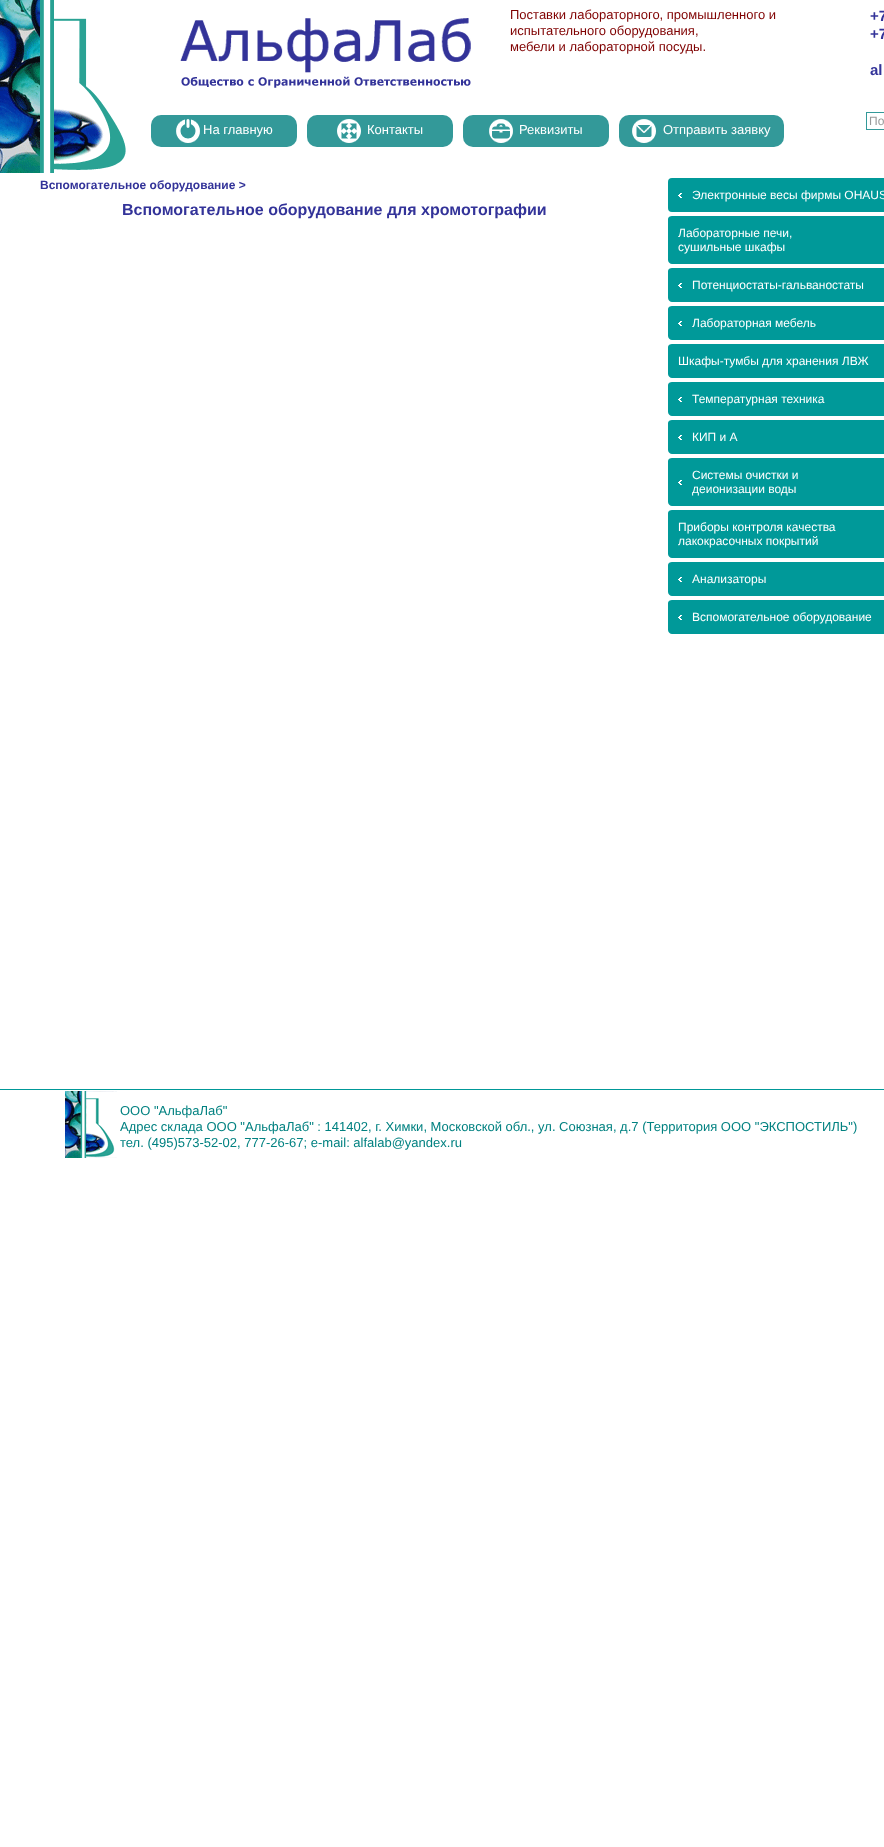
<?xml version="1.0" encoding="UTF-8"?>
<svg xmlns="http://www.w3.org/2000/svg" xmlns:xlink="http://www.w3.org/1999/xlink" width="884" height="1847">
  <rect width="100%" height="100%" fill="#ffffff" />
  <image x="0" y="0" width="126" height="173" xlink:href="image1.png" />
  <image x="180" y="18" width="291" height="70" xlink:href="image2.png" />
  <rect x="151" y="115" width="146" height="32" rx="10" fill="#339999" />
  <image x="176" y="119" width="24" height="24" xlink:href="image3.png" />
  <rect x="307" y="115" width="146" height="32" rx="10" fill="#339999" />
  <image x="337" y="119" width="24" height="24" xlink:href="image4.png" />
  <rect x="463" y="115" width="146" height="32" rx="10" fill="#339999" />
  <image x="489" y="119" width="24" height="24" xlink:href="image5.png" />
  <rect x="619" y="115" width="165" height="32" rx="10" fill="#339999" />
  <image x="632" y="119" width="24" height="24" xlink:href="image6.png" />
  <rect x="866.5" y="112.5" width="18" height="17" fill="none" stroke="#339999" />
  <rect x="668" y="178" width="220" height="34" rx="4" fill="#009999" />
  <image x="678" y="193" width="4" height="5" xlink:href="image7.png" />
  <path d="M 672 216 h 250 c 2 0 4 1 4 3 v 41 c 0 2 -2 4 -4 4 h -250 c -2 0 -4 -2 -4 -4 v -41 c 0 -2 2 -3 4 -3 z" fill="#009999" />
  <path d="M 672 268 h 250 c 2 0 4 1 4 3 v 27 c 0 2 -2 4 -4 4 h -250 c -2 0 -4 -2 -4 -4 v -27 c 0 -2 2 -3 4 -3 z" fill="#009999" />
  <image x="678" y="283" width="4" height="5" xlink:href="image7.png" />
  <path d="M 672 306 h 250 c 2 0 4 1 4 3 v 27 c 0 2 -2 4 -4 4 h -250 c -2 0 -4 -2 -4 -4 v -27 c 0 -2 2 -3 4 -3 z" fill="#009999" />
  <image x="678" y="321" width="4" height="5" xlink:href="image7.png" />
  <path d="M 672 344 h 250 c 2 0 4 1 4 3 v 27 c 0 2 -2 4 -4 4 h -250 c -2 0 -4 -2 -4 -4 v -27 c 0 -2 2 -3 4 -3 z" fill="#009999" />
  <path d="M 672 382 h 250 c 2 0 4 1 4 3 v 27 c 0 2 -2 4 -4 4 h -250 c -2 0 -4 -2 -4 -4 v -27 c 0 -2 2 -3 4 -3 z" fill="#009999" />
  <image x="678" y="397" width="4" height="5" xlink:href="image7.png" />
  <path d="M 672 420 h 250 c 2 0 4 1 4 3 v 27 c 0 2 -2 4 -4 4 h -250 c -2 0 -4 -2 -4 -4 v -27 c 0 -2 2 -3 4 -3 z" fill="#009999" />
  <image x="678" y="435" width="4" height="5" xlink:href="image7.png" />
  <path d="M 672 458 h 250 c 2 0 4 1 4 3 v 41 c 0 2 -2 4 -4 4 h -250 c -2 0 -4 -2 -4 -4 v -41 c 0 -2 2 -3 4 -3 z" fill="#009999" />
  <image x="678" y="480" width="4" height="5" xlink:href="image7.png" />
  <path d="M 672 510 h 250 c 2 0 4 1 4 3 v 41 c 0 2 -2 4 -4 4 h -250 c -2 0 -4 -2 -4 -4 v -41 c 0 -2 2 -3 4 -3 z" fill="#009999" />
  <path d="M 672 562 h 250 c 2 0 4 1 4 3 v 27 c 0 2 -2 4 -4 4 h -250 c -2 0 -4 -2 -4 -4 v -27 c 0 -2 2 -3 4 -3 z" fill="#009999" />
  <image x="678" y="577" width="4" height="5" xlink:href="image7.png" />
  <path d="M 672 600 h 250 c 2 0 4 1 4 3 v 27 c 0 2 -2 4 -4 4 h -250 c -2 0 -4 -2 -4 -4 v -27 c 0 -2 2 -3 4 -3 z" fill="#009999" />
  <image x="678" y="615" width="4" height="5" xlink:href="image7.png" />
  <rect y="1089" width="884" height="1" fill="#009898" />
  <image x="65" y="1091" width="52" height="67" xlink:href="image8.png" />
  <text x="510" y="19" style="font-family: Liberation Sans; font-size: 13px; fill: #7f0000">Поставки лабораторного, промышленного и</text>
  <text x="510" y="35" style="font-family: Liberation Sans; font-size: 13px; fill: #7f0000">испытательного оборудования,</text>
  <text x="510" y="51" style="font-family: Liberation Sans; font-size: 13px; fill: #7f0000">мебели и лабораторной посуды.</text>
  <text x="203" y="134" style="font-family: Liberation Sans; font-size: 13px; fill: #ffffff">На главную</text>
  <text x="367" y="134" style="font-family: Liberation Sans; font-size: 13px; fill: #ffffff">Контакты</text>
  <text x="519" y="134" style="font-family: Liberation Sans; font-size: 13px; fill: #ffffff">Реквизиты</text>
  <text x="663" y="134" style="font-family: Liberation Sans; font-size: 13px; fill: #ffffff">Отправить заявку</text>
  <text x="870" y="21" style="font-family: Liberation Sans; font-size: 15px; font-weight: bold; fill: #333399">+7</text>
  <text x="870" y="39" style="font-family: Liberation Sans; font-size: 15px; font-weight: bold; fill: #333399">+7</text>
  <text x="870" y="75" style="font-family: Liberation Sans; font-size: 15px; font-weight: bold; fill: #333399">al</text>
  <text x="869" y="125" style="font-family: Liberation Sans; font-size: 12px; fill: #999999">По</text>
  <text x="40" y="189" style="font-family: Liberation Sans; font-size: 12px; font-weight: bold; fill: #333399">Вспомогательное оборудование &gt;</text>
  <text x="122" y="215" style="font-family: Liberation Sans; font-size: 16px; font-weight: bold; fill: #333399">Вспомогательное оборудование для хромотографии</text>
  <text x="692" y="199" style="font-family: Liberation Sans; font-size: 12px; fill: #ffffff">Электронные весы фирмы OHAUS</text>
  <text x="678" y="237" style="font-family: Liberation Sans; font-size: 12px; fill: #ffffff">Лабораторные печи,</text>
  <text x="678" y="251" style="font-family: Liberation Sans; font-size: 12px; fill: #ffffff">сушильные шкафы</text>
  <text x="692" y="289" style="font-family: Liberation Sans; font-size: 12px; fill: #ffffff">Потенциостаты-гальваностаты</text>
  <text x="692" y="327" style="font-family: Liberation Sans; font-size: 12px; fill: #ffffff">Лабораторная мебель</text>
  <text x="678" y="365" style="font-family: Liberation Sans; font-size: 12px; fill: #ffffff">Шкафы-тумбы для хранения ЛВЖ</text>
  <text x="692" y="403" style="font-family: Liberation Sans; font-size: 12px; fill: #ffffff">Температурная техника</text>
  <text x="692" y="441" style="font-family: Liberation Sans; font-size: 12px; fill: #ffffff">КИП и А</text>
  <text x="692" y="479" style="font-family: Liberation Sans; font-size: 12px; fill: #ffffff">Системы очистки и</text>
  <text x="692" y="493" style="font-family: Liberation Sans; font-size: 12px; fill: #ffffff">деионизации воды</text>
  <text x="678" y="531" style="font-family: Liberation Sans; font-size: 12px; fill: #ffffff">Приборы контроля качества</text>
  <text x="678" y="545" style="font-family: Liberation Sans; font-size: 12px; fill: #ffffff">лакокрасочных покрытий</text>
  <text x="692" y="583" style="font-family: Liberation Sans; font-size: 12px; fill: #ffffff">Анализаторы</text>
  <text x="692" y="621" style="font-family: Liberation Sans; font-size: 12px; fill: #ffffff">Вспомогательное оборудование</text>
  <text x="120" y="1115" style="font-family: Liberation Sans; font-size: 13px; fill: #018180">ООО "АльфаЛаб"</text>
  <text x="120" y="1131" style="font-family: Liberation Sans; font-size: 13px; fill: #018180">Адрес склада ООО "АльфаЛаб" : 141402, г. Химки, Московской обл., ул. Союзная, д.7 (Территория ООО "ЭКСПОСТИЛЬ")</text>
  <text x="120" y="1147" style="font-family: Liberation Sans; font-size: 13px; fill: #018180">тел. (495)573-52-02, 777-26-67; e-mail: alfalab@yandex.ru</text>
</svg>
